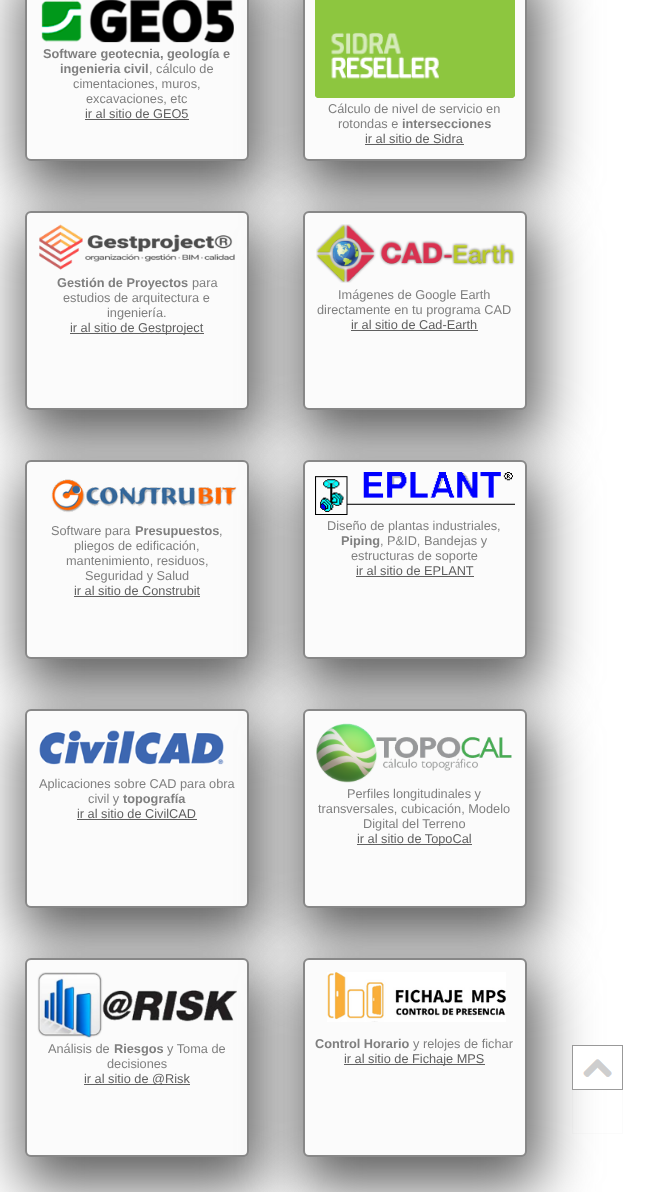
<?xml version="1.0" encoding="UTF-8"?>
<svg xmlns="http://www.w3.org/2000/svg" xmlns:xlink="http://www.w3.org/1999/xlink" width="652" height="1192">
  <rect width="100%" height="100%" fill="#ffffff" />
  <rect x="22" y="-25" width="240" height="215" rx="14" fill="#5f5f5f" filter="blur(28px)" />
  <rect x="26" y="-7" width="222" height="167" rx="5" fill="#fbfbfb" stroke="#888888" stroke-width="2" />
  <image x="41" y="0" width="193" height="43" xlink:href="image1.png" />
  <rect x="85" y="119" width="104" height="1" fill="#5f5f5f" />
  <rect x="300" y="-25" width="240" height="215" rx="14" fill="#5f5f5f" filter="blur(28px)" />
  <rect x="304" y="-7" width="222" height="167" rx="5" fill="#fbfbfb" stroke="#888888" stroke-width="2" />
  <image x="315" y="0" width="200" height="98" xlink:href="image2.png" />
  <rect x="365" y="144" width="99" height="1" fill="#5f5f5f" />
  <rect x="22" y="224" width="240" height="215" rx="14" fill="#5f5f5f" filter="blur(28px)" />
  <rect x="26" y="212" width="222" height="197" rx="5" fill="#fbfbfb" stroke="#888888" stroke-width="2" />
  <image x="39" y="224" width="196" height="46" xlink:href="image3.png" />
  <rect x="70" y="333" width="134" height="1" fill="#5f5f5f" />
  <rect x="300" y="224" width="240" height="215" rx="14" fill="#5f5f5f" filter="blur(28px)" />
  <rect x="304" y="212" width="222" height="197" rx="5" fill="#fbfbfb" stroke="#888888" stroke-width="2" />
  <image x="316" y="224" width="199" height="59" xlink:href="image4.png" />
  <rect x="351" y="330" width="127" height="1" fill="#5f5f5f" />
  <rect x="22" y="473" width="240" height="215" rx="14" fill="#5f5f5f" filter="blur(28px)" />
  <rect x="26" y="461" width="222" height="197" rx="5" fill="#fbfbfb" stroke="#888888" stroke-width="2" />
  <image x="51" y="479" width="186" height="34" xlink:href="image5.png" />
  <rect x="74" y="596" width="126" height="1" fill="#5f5f5f" />
  <rect x="300" y="473" width="240" height="215" rx="14" fill="#5f5f5f" filter="blur(28px)" />
  <rect x="304" y="461" width="222" height="197" rx="5" fill="#fbfbfb" stroke="#888888" stroke-width="2" />
  <image x="315" y="472" width="200" height="43" xlink:href="image6.png" />
  <rect x="356" y="576" width="118" height="1" fill="#5f5f5f" />
  <rect x="22" y="722" width="240" height="215" rx="14" fill="#5f5f5f" filter="blur(28px)" />
  <rect x="26" y="710" width="222" height="197" rx="5" fill="#fbfbfb" stroke="#888888" stroke-width="2" />
  <image x="39" y="730" width="185" height="35" xlink:href="image7.png" />
  <rect x="77" y="819" width="120" height="1" fill="#5f5f5f" />
  <rect x="300" y="722" width="240" height="215" rx="14" fill="#5f5f5f" filter="blur(28px)" />
  <rect x="304" y="710" width="222" height="197" rx="5" fill="#fbfbfb" stroke="#888888" stroke-width="2" />
  <image x="316" y="723" width="196" height="60" xlink:href="image8.png" />
  <rect x="357" y="844" width="115" height="1" fill="#5f5f5f" />
  <rect x="22" y="971" width="240" height="215" rx="14" fill="#5f5f5f" filter="blur(28px)" />
  <rect x="26" y="959" width="222" height="197" rx="5" fill="#fbfbfb" stroke="#888888" stroke-width="2" />
  <image x="37" y="972" width="200" height="66" xlink:href="image9.png" />
  <rect x="84" y="1084" width="106" height="1" fill="#5f5f5f" />
  <rect x="300" y="971" width="240" height="215" rx="14" fill="#5f5f5f" filter="blur(28px)" />
  <rect x="304" y="959" width="222" height="197" rx="5" fill="#fbfbfb" stroke="#888888" stroke-width="2" />
  <image x="327" y="972" width="179" height="50" xlink:href="image10.png" />
  <rect x="344" y="1064" width="141" height="1" fill="#5f5f5f" />
  <image x="573" y="1046" width="39" height="43" xlink:href="image11.png" />
  <rect x="572.5" y="1045.5" width="50" height="44" fill="none" stroke="#999999" />
  <rect x="572" y="1089" width="51" height="1" fill="#9d9d9d" />
  <rect x="572.5" y="1089.5" width="50" height="44" fill="none" stroke="#949494" stroke-opacity="0.04" />
  <text x="43" y="58" style="font-family: Liberation Sans; font-size: 12.75px; font-weight: bold; fill: #7f7f7f">Software geotecnia, geología e</text>
  <text x="60" y="73" style="font-family: Liberation Sans; font-size: 12.75px; font-weight: bold; fill: #7f7f7f">ingenieria civil</text>
  <text x="149" y="73" style="font-family: Liberation Sans; font-size: 12.75px; fill: #7f7f7f">, cálculo de</text>
  <text x="73" y="88" style="font-family: Liberation Sans; font-size: 12.75px; fill: #7f7f7f">cimentaciones, muros,</text>
  <text x="86" y="103" style="font-family: Liberation Sans; font-size: 12.75px; fill: #7f7f7f">excavaciones, etc</text>
  <text x="85" y="118" style="font-family: Liberation Sans; font-size: 12.75px; fill: #5f5f5f">ir al sitio de GEO5</text>
  <text x="328" y="113" style="font-family: Liberation Sans; font-size: 12.75px; fill: #7f7f7f">Cálculo de nivel de servicio en</text>
  <text x="338" y="128" style="font-family: Liberation Sans; font-size: 12.75px; fill: #7f7f7f">rotondas e</text>
  <text x="402" y="128" style="font-family: Liberation Sans; font-size: 12.75px; font-weight: bold; fill: #7f7f7f">intersecciones</text>
  <text x="365" y="143" style="font-family: Liberation Sans; font-size: 12.75px; fill: #5f5f5f">ir al sitio de Sidra</text>
  <text x="57" y="287" style="font-family: Liberation Sans; font-size: 12.75px; font-weight: bold; fill: #7f7f7f">Gestión de Proyectos</text>
  <text x="192" y="287" style="font-family: Liberation Sans; font-size: 12.75px; fill: #7f7f7f">para</text>
  <text x="63" y="302" style="font-family: Liberation Sans; font-size: 12.75px; fill: #7f7f7f">estudios de arquitectura e</text>
  <text x="107" y="317" style="font-family: Liberation Sans; font-size: 12.75px; fill: #7f7f7f">ingeniería.</text>
  <text x="70" y="332" style="font-family: Liberation Sans; font-size: 12.75px; fill: #5f5f5f">ir al sitio de Gestproject</text>
  <text x="338" y="299" style="font-family: Liberation Sans; font-size: 12.75px; fill: #7f7f7f">Imágenes de Google Earth</text>
  <text x="317" y="314" style="font-family: Liberation Sans; font-size: 12.75px; fill: #7f7f7f">directamente en tu programa CAD</text>
  <text x="351" y="329" style="font-family: Liberation Sans; font-size: 12.75px; fill: #5f5f5f">ir al sitio de Cad-Earth</text>
  <text x="51" y="535" style="font-family: Liberation Sans; font-size: 12.75px; fill: #7f7f7f">Software para</text>
  <text x="135" y="535" style="font-family: Liberation Sans; font-size: 12.75px; font-weight: bold; fill: #7f7f7f">Presupuestos</text>
  <text x="219" y="535" style="font-family: Liberation Sans; font-size: 12.75px; fill: #7f7f7f">,</text>
  <text x="74" y="550" style="font-family: Liberation Sans; font-size: 12.75px; fill: #7f7f7f">pliegos de edificación,</text>
  <text x="66" y="565" style="font-family: Liberation Sans; font-size: 12.75px; fill: #7f7f7f">mantenimiento, residuos,</text>
  <text x="85" y="580" style="font-family: Liberation Sans; font-size: 12.75px; fill: #7f7f7f">Seguridad y Salud</text>
  <text x="74" y="595" style="font-family: Liberation Sans; font-size: 12.75px; fill: #5f5f5f">ir al sitio de Construbit</text>
  <text x="327" y="530" style="font-family: Liberation Sans; font-size: 12.75px; fill: #7f7f7f">Diseño de plantas industriales,</text>
  <text x="341" y="545" style="font-family: Liberation Sans; font-size: 12.75px; font-weight: bold; fill: #7f7f7f">Piping</text>
  <text x="380" y="545" style="font-family: Liberation Sans; font-size: 12.75px; fill: #7f7f7f">, P&amp;ID, Bandejas y</text>
  <text x="351" y="560" style="font-family: Liberation Sans; font-size: 12.75px; fill: #7f7f7f">estructuras de soporte</text>
  <text x="356" y="575" style="font-family: Liberation Sans; font-size: 12.75px; fill: #5f5f5f">ir al sitio de EPLANT</text>
  <text x="39" y="788" style="font-family: Liberation Sans; font-size: 12.75px; fill: #7f7f7f">Aplicaciones sobre CAD para obra</text>
  <text x="88" y="803" style="font-family: Liberation Sans; font-size: 12.75px; fill: #7f7f7f">civil y</text>
  <text x="123" y="803" style="font-family: Liberation Sans; font-size: 12.75px; font-weight: bold; fill: #7f7f7f">topografía</text>
  <text x="77" y="818" style="font-family: Liberation Sans; font-size: 12.75px; fill: #5f5f5f">ir al sitio de CivilCAD</text>
  <text x="347" y="798" style="font-family: Liberation Sans; font-size: 12.75px; fill: #7f7f7f">Perfiles longitudinales y</text>
  <text x="318" y="813" style="font-family: Liberation Sans; font-size: 12.75px; fill: #7f7f7f">transversales, cubicación, Modelo</text>
  <text x="363" y="828" style="font-family: Liberation Sans; font-size: 12.75px; fill: #7f7f7f">Digital del Terreno</text>
  <text x="357" y="843" style="font-family: Liberation Sans; font-size: 12.75px; fill: #5f5f5f">ir al sitio de TopoCal</text>
  <text x="48" y="1053" style="font-family: Liberation Sans; font-size: 12.75px; fill: #7f7f7f">Análisis de</text>
  <text x="114" y="1053" style="font-family: Liberation Sans; font-size: 12.75px; font-weight: bold; fill: #7f7f7f">Riesgos</text>
  <text x="167" y="1053" style="font-family: Liberation Sans; font-size: 12.75px; fill: #7f7f7f">y Toma de</text>
  <text x="107" y="1068" style="font-family: Liberation Sans; font-size: 12.75px; fill: #7f7f7f">decisiones</text>
  <text x="84" y="1083" style="font-family: Liberation Sans; font-size: 12.75px; fill: #5f5f5f">ir al sitio de @Risk</text>
  <text x="315" y="1048" style="font-family: Liberation Sans; font-size: 12.75px; font-weight: bold; fill: #7f7f7f">Control Horario</text>
  <text x="413" y="1048" style="font-family: Liberation Sans; font-size: 12.75px; fill: #7f7f7f">y relojes de fichar</text>
  <text x="344" y="1063" style="font-family: Liberation Sans; font-size: 12.75px; fill: #5f5f5f">ir al sitio de Fichaje MPS</text>
</svg>
